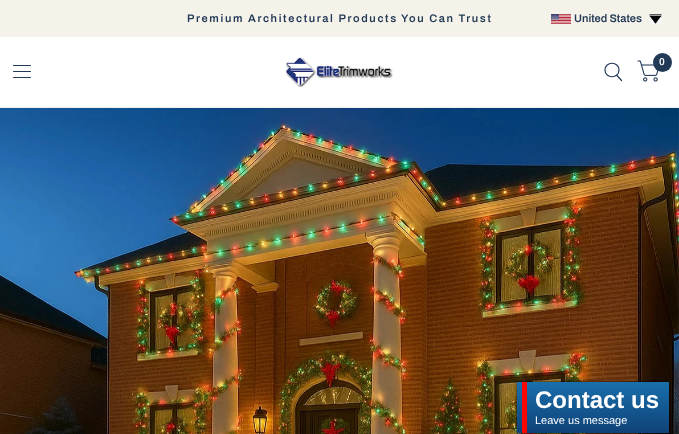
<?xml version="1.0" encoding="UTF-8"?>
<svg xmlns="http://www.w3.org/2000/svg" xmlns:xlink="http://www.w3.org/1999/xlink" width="679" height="434">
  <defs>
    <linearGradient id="g1" gradientUnits="userSpaceOnUse" x1="593" y1="382" x2="593" y2="433"><stop offset="0" stop-color="#196fac" /><stop offset="1" stop-color="#0f4277" /></linearGradient>
  </defs>
  <rect width="100%" height="100%" fill="#ffffff" />
  <rect width="679" height="37" fill="#f5f2ea" />
  <image x="551" y="14" width="20" height="10" xlink:href="image1.png" />
  <image x="649" y="14" width="13" height="10" xlink:href="image2.png" />
  <rect y="107" width="679" height="1" fill="#eeeeee" />
  <image x="285" y="57" width="108" height="30" xlink:href="image3.png" />
  <path d="M 617 75.5 l 4.5 5 m -2.5 -10.5 c 0 9 -14 9 -14 0 c 0 -9 14 -9 14 0 z" fill="none" stroke="#223a56" stroke-width="1.2" stroke-linecap="round" stroke-linejoin="round" />
  <image x="637" y="60" width="22" height="22" xlink:href="image4.png" />
  <circle cx="662.5" cy="62.5" r="9.5" fill="#223a56" />
  <rect x="13" y="65" width="18" height="1" rx="0.5" fill="#223a56" />
  <rect x="13" y="71" width="18" height="1" rx="0.5" fill="#223a56" />
  <rect x="13" y="77" width="18" height="1" rx="0.5" fill="#223a56" />
  <image x="0" y="108" width="679" height="326" xlink:href="image5.png" />
  <rect x="517" y="382" width="152" height="51" fill="#000000" filter="blur(1px)" />
  <rect x="517" y="382" width="152" height="51" fill="url(#g1)" />
  <rect x="522" y="382" width="5" height="51" fill="#fe0600" />
  <text x="187" y="22" style="font-family: Archivo; font-size: 11px; font-weight: 600; letter-spacing: 1.65px; fill: #223a56">Premium Architectural Products You Can Trust</text>
  <text x="574" y="22" style="font-family: Archivo; font-size: 11px; font-weight: 600; fill: #223a56">United States</text>
  <text x="659" y="65" style="font-family: Archivo; font-size: 10px; font-weight: 600; fill: #ffffff">0</text>
  <text x="535" y="408" style="font-family: Liberation Sans; font-size: 24px; font-weight: bold; fill: #ffffff">Contact us</text>
  <text x="535" y="424" style="font-family: Liberation Sans; font-size: 11px; fill: #ffffff">Leave us message</text>
</svg>
